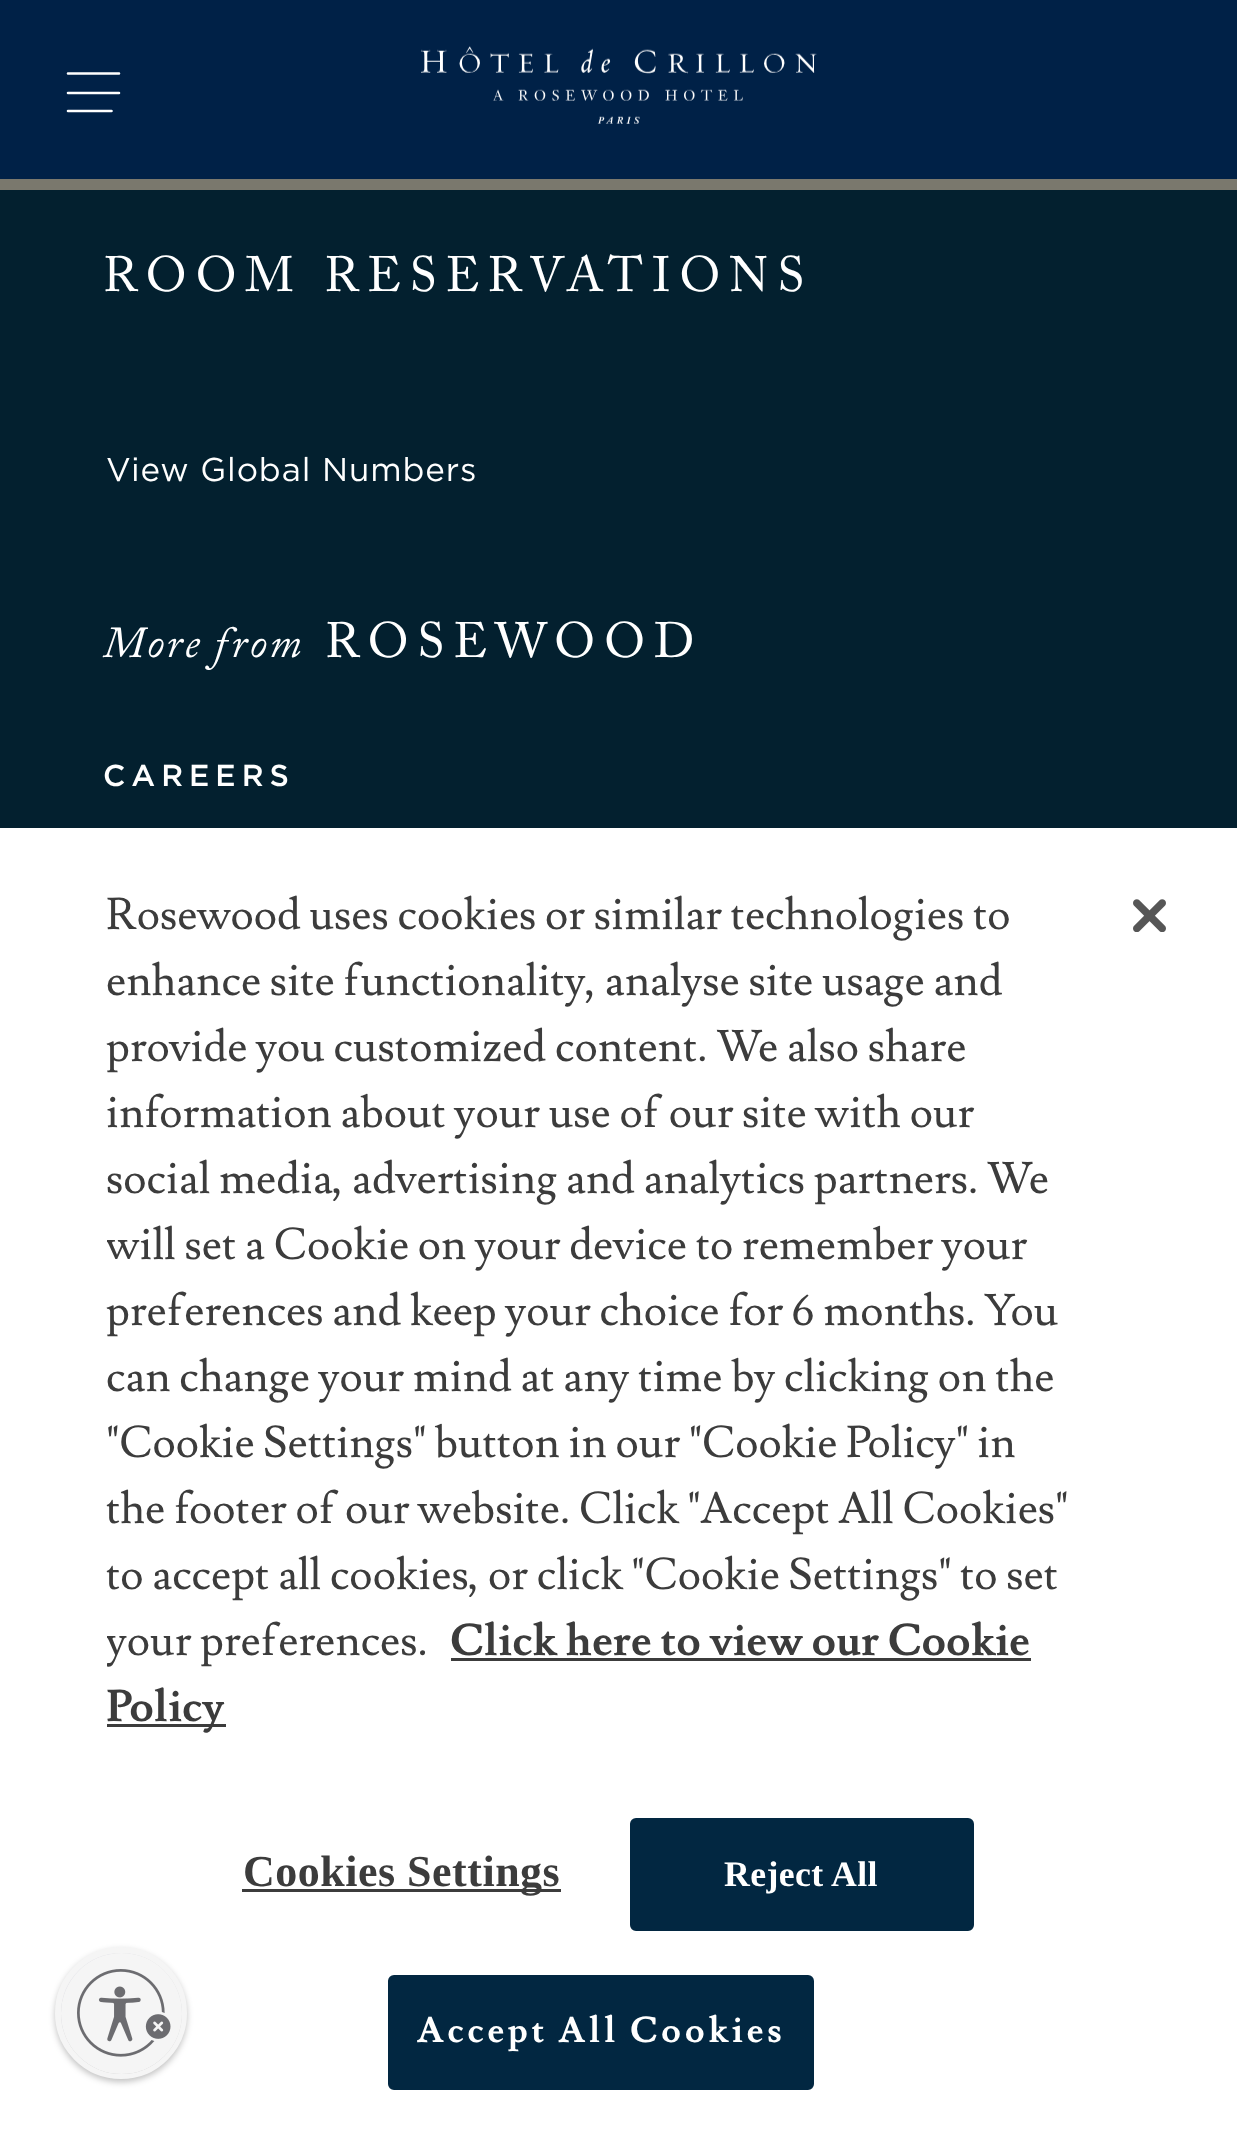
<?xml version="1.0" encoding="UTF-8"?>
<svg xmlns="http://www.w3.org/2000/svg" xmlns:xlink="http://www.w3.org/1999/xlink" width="1237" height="2133">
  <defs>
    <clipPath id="clip1"><rect x="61" y="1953" width="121" height="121" rx="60.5" /></clipPath>
    <clipPath id="clip2"><rect x="107" y="883" width="968" height="902" /></clipPath>
  </defs>
  <rect width="100%" height="100%" fill="#03202f" />
  <rect width="1237" height="179" fill="#002147" />
  <rect y="179" width="1237" height="11" fill="#7a786d" />
  <path d="M 68 73.5 h 51 m -51 19.5 h 51 m -51 18 h 43.5" fill="none" stroke="#ffffff" stroke-width="2.6" stroke-linecap="round" stroke-linejoin="round" />
  <image x="421" y="46" width="396" height="78" xlink:href="image1.png" />
  <rect y="828" width="1237" height="1305" fill="#ffffff" />
  <rect x="451" y="1658" width="580" height="3" fill="#3c3c3c" />
  <rect x="107" y="1724" width="119" height="3" fill="#3c3c3c" />
  <rect x="242" y="1889" width="319" height="3" fill="#3c3c3c" />
  <rect x="631.5" y="1819.5" width="341" height="110" rx="4.5" fill="#022741" stroke="#022741" stroke-width="3" />
  <rect x="389.5" y="1976.5" width="423" height="112" rx="4.5" fill="#022741" stroke="#022741" stroke-width="3" />
  <image x="1133" y="899" width="33" height="33" xlink:href="image2.png" />
  <rect x="55" y="1950" width="132" height="132" rx="66" fill="#000000" fill-opacity="0.24" filter="blur(3px)" />
  <circle cx="121" cy="2013" r="63" fill="#ebebf0" stroke="#f5f5f5" stroke-width="6" />
  <g clip-path="url(#clip1)">
    <rect x="61" y="1955" width="121" height="121" rx="60.5" fill="#000000" fill-opacity="0.24" filter="blur(3px)" />
  </g>
  <circle cx="121.5" cy="2013.5" r="60.5" fill="#f5f5f5" />
  <image x="77" y="1969" width="94" height="88" xlink:href="image3.png" />
  <text x="103" y="291" style="font-family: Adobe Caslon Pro; font-size: 49.5px; letter-spacing: 8.9px; fill: #ffffff">ROOM RESERVATIONS</text>
  <text x="106" y="481" style="font-family: Gotham; font-size: 33px; letter-spacing: 0.9px; fill: #ffffff">View Global Numbers</text>
  <text x="103" y="657" style="font-family: Adobe Caslon Pro; font-size: 44px; font-style: italic; letter-spacing: 2.25px; fill: #ffffff">More from</text>
  <text x="325" y="657" style="font-family: Adobe Caslon Pro; font-size: 49.5px; letter-spacing: 8.9px; fill: #ffffff">ROSEWOOD</text>
  <text x="103" y="786" style="font-family: Gotham; font-size: 30.25px; font-weight: 500; letter-spacing: 6px; fill: #ffffff">CAREERS</text>
  <text x="106" y="929" style="font-family: Lusitana; font-size: 44px; fill: #3c3c3c">Rosewood uses cookies or similar technologies to</text>
  <text x="106" y="995" style="font-family: Lusitana; font-size: 44px; fill: #3c3c3c">enhance site functionality, analyse site usage and</text>
  <text x="106" y="1061" style="font-family: Lusitana; font-size: 44px; fill: #3c3c3c">provide you customized content. We also share</text>
  <text x="106" y="1127" style="font-family: Lusitana; font-size: 44px; fill: #3c3c3c">information about your use of our site with our</text>
  <text x="106" y="1193" style="font-family: Lusitana; font-size: 44px; fill: #3c3c3c">social media, advertising and analytics partners. We</text>
  <g clip-path="url(#clip2)">
    <text x="106" y="1259" style="font-family: Lusitana; font-size: 44px; fill: #3c3c3c">will set a Cookie on your device to remember your</text>
  </g>
  <text x="106" y="1325" style="font-family: Lusitana; font-size: 44px; fill: #3c3c3c">preferences and keep your choice for 6 months. You</text>
  <text x="106" y="1391" style="font-family: Lusitana; font-size: 44px; fill: #3c3c3c">can change your mind at any time by clicking on the</text>
  <text x="106" y="1457" style="font-family: Lusitana; font-size: 44px; fill: #3c3c3c">"Cookie Settings" button in our "Cookie Policy" in</text>
  <text x="106" y="1523" style="font-family: Lusitana; font-size: 44px; fill: #3c3c3c">the footer of our website. Click "Accept All Cookies"</text>
  <text x="106" y="1589" style="font-family: Lusitana; font-size: 44px; fill: #3c3c3c">to accept all cookies, or click "Cookie Settings" to set</text>
  <g clip-path="url(#clip2)">
    <text x="106" y="1655" style="font-family: Lusitana; font-size: 44px; fill: #3c3c3c">your preferences.</text>
  </g>
  <text x="450" y="1655" style="font-family: Lusitana; font-size: 44px; font-weight: bold; fill: #3c3c3c">Click here to view our Cookie</text>
  <text x="106" y="1721" style="font-family: Lusitana; font-size: 44px; font-weight: bold; fill: #3c3c3c">Policy</text>
  <text x="243" y="1886" style="font-family: Liberation Serif; font-size: 44px; font-weight: bold; letter-spacing: 0.5px; fill: #3c3c3c">Cookies Settings</text>
  <text x="724" y="1886" style="font-family: Liberation Serif; font-size: 35.75px; font-weight: bold; letter-spacing: 0.4px; fill: #ffffff">Reject All</text>
  <text x="417" y="2042" style="font-family: Lusitana; font-size: 35.75px; font-weight: bold; letter-spacing: 3.6px; fill: #ffffff">Accept All Cookies</text>
</svg>
